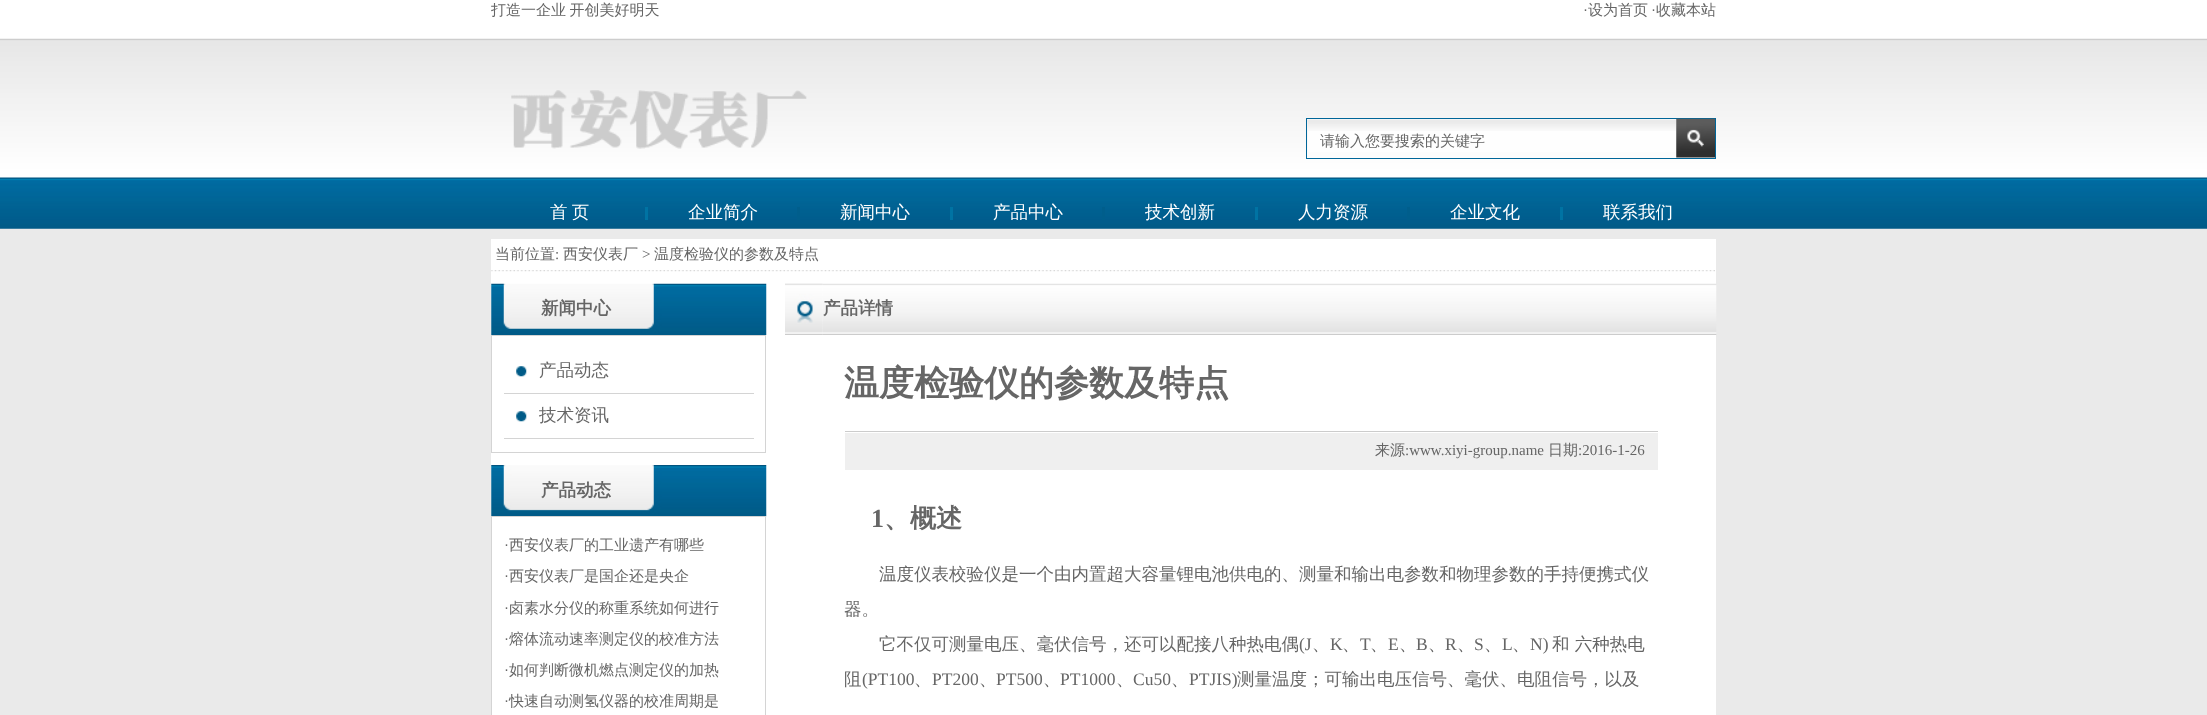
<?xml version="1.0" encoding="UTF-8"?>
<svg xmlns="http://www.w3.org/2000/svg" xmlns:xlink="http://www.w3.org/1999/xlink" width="2207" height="715">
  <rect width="100%" height="100%" fill="#eaeaea" />
  <image x="0" y="0" width="2207" height="229" xlink:href="image1.png" />
  <image x="511" y="90" width="296" height="59" xlink:href="image2.png" />
  <rect x="1306.5" y="118.5" width="409" height="40" fill="none" stroke="#006699" />
  <rect x="1308" y="131" width="368" height="21" fill="#fefefe" />
  <image x="1307" y="120" width="369" height="11" xlink:href="image3.png" />
  <image x="1676" y="118" width="39" height="40" xlink:href="image4.png" />
  <rect x="645" y="207" width="3" height="13" fill="#0073a3" />
  <rect x="797" y="207" width="3" height="13" fill="#005e8c" />
  <rect x="950" y="207" width="3" height="13" fill="#0073a3" />
  <rect x="1102" y="207" width="3" height="13" fill="#005e8c" />
  <rect x="1255" y="207" width="3" height="13" fill="#0073a3" />
  <rect x="1407" y="207" width="3" height="13" fill="#005e8c" />
  <rect x="1560" y="207" width="3" height="13" fill="#0073a3" />
  <rect x="491" y="239" width="1225" height="476" fill="#ffffff" />
  <image x="491" y="270" width="1224" height="2" xlink:href="image5.png" />
  <image x="491" y="283" width="276" height="52" xlink:href="image6.png" />
  <rect x="491.5" y="335.5" width="274" height="117" fill="none" stroke="#d4d4d4" />
  <image x="516" y="366" width="11" height="11" xlink:href="image7.png" />
  <rect x="504" y="393" width="250" height="1" fill="#d4d4d4" />
  <image x="516" y="411" width="11" height="11" xlink:href="image7.png" />
  <rect x="504" y="438" width="250" height="1" fill="#d4d4d4" />
  <image x="491" y="465" width="276" height="52" xlink:href="image8.png" />
  <rect x="491.5" y="516.5" width="274" height="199" fill="none" stroke="#d4d4d4" />
  <image x="785" y="283" width="38" height="52" xlink:href="image9.png" />
  <image x="822" y="283" width="895" height="52" xlink:href="image11.png" />
  <image x="785" y="283" width="38" height="52" xlink:href="image10.png" />
  <rect x="845" y="431" width="813" height="1" fill="#cccccc" />
  <rect x="845" y="433" width="813" height="37" fill="#efefef" />
  <text x="491" y="15" word-spacing="-1" style="font-family: WenQuanYi Zen Hei; font-size: 15px; font-weight: 500; fill: #666666">打造一企业 开创美好明天</text>
  <text x="1583" y="15" style="font-family: Liberation Serif; font-size: 15px; fill: #666666">·</text>
  <text x="1588" y="15" style="font-family: WenQuanYi Zen Hei; font-size: 15px; font-weight: 500; fill: #666666">设为首页</text>
  <text x="1651" y="15" style="font-family: Liberation Serif; font-size: 15px; fill: #666666">·</text>
  <text x="1656" y="15" style="font-family: WenQuanYi Zen Hei; font-size: 15px; font-weight: 500; fill: #666666">收藏本站</text>
  <text x="1320" y="146" style="font-family: WenQuanYi Zen Hei; font-size: 15px; font-weight: 500; fill: #666666">请输入您要搜索的关键字</text>
  <text x="550" y="218" word-spacing="-1" style="font-family: WenQuanYi Zen Hei; font-size: 17.5px; font-weight: 500; fill: #ffffff">首 页</text>
  <text x="688" y="218" style="font-family: WenQuanYi Zen Hei; font-size: 17.5px; font-weight: 500; fill: #ffffff">企业简介</text>
  <text x="840" y="218" style="font-family: WenQuanYi Zen Hei; font-size: 17.5px; font-weight: 500; fill: #ffffff">新闻中心</text>
  <text x="993" y="218" style="font-family: WenQuanYi Zen Hei; font-size: 17.5px; font-weight: 500; fill: #ffffff">产品中心</text>
  <text x="1145" y="218" style="font-family: WenQuanYi Zen Hei; font-size: 17.5px; font-weight: 500; fill: #ffffff">技术创新</text>
  <text x="1298" y="218" style="font-family: WenQuanYi Zen Hei; font-size: 17.5px; font-weight: 500; fill: #ffffff">人力资源</text>
  <text x="1450" y="218" style="font-family: WenQuanYi Zen Hei; font-size: 17.5px; font-weight: 500; fill: #ffffff">企业文化</text>
  <text x="1603" y="218" style="font-family: WenQuanYi Zen Hei; font-size: 17.5px; font-weight: 500; fill: #ffffff">联系我们</text>
  <text x="495" y="259" style="font-family: WenQuanYi Zen Hei; font-size: 15px; font-weight: 500; fill: #666666">当前位置</text>
  <text x="555" y="259" style="font-family: Liberation Serif; font-size: 15px; fill: #666666">:</text>
  <text x="563" y="259" style="font-family: WenQuanYi Zen Hei; font-size: 15px; font-weight: 500; fill: #666666">西安仪表厂</text>
  <text x="642" y="259" style="font-family: Liberation Serif; font-size: 15px; fill: #666666">&gt;</text>
  <text x="654" y="259" style="font-family: WenQuanYi Zen Hei; font-size: 15px; font-weight: 500; fill: #666666">温度检验仪的参数及特点</text>
  <text x="541" y="314" style="font-family: WenQuanYi Zen Hei; font-size: 17.5px; font-weight: bold; fill: #666666">新闻中心</text>
  <text x="539" y="376" style="font-family: WenQuanYi Zen Hei; font-size: 17.5px; font-weight: 500; fill: #666666">产品动态</text>
  <text x="539" y="421" style="font-family: WenQuanYi Zen Hei; font-size: 17.5px; font-weight: 500; fill: #666666">技术资讯</text>
  <text x="541" y="496" style="font-family: WenQuanYi Zen Hei; font-size: 17.5px; font-weight: bold; fill: #666666">产品动态</text>
  <text x="504" y="550" style="font-family: Liberation Serif; font-size: 15px; fill: #666666">·</text>
  <text x="509" y="550" style="font-family: WenQuanYi Zen Hei; font-size: 15px; font-weight: 500; fill: #666666">西安仪表厂的工业遗产有哪些</text>
  <text x="504" y="581" style="font-family: Liberation Serif; font-size: 15px; fill: #666666">·</text>
  <text x="509" y="581" style="font-family: WenQuanYi Zen Hei; font-size: 15px; font-weight: 500; fill: #666666">西安仪表厂是国企还是央企</text>
  <text x="504" y="613" style="font-family: Liberation Serif; font-size: 15px; fill: #666666">·</text>
  <text x="509" y="613" style="font-family: WenQuanYi Zen Hei; font-size: 15px; font-weight: 500; fill: #666666">卤素水分仪的称重系统如何进行</text>
  <text x="504" y="644" style="font-family: Liberation Serif; font-size: 15px; fill: #666666">·</text>
  <text x="509" y="644" style="font-family: WenQuanYi Zen Hei; font-size: 15px; font-weight: 500; fill: #666666">熔体流动速率测定仪的校准方法</text>
  <text x="504" y="675" style="font-family: Liberation Serif; font-size: 15px; fill: #666666">·</text>
  <text x="509" y="675" style="font-family: WenQuanYi Zen Hei; font-size: 15px; font-weight: 500; fill: #666666">如何判断微机燃点测定仪的加热</text>
  <text x="504" y="706" style="font-family: Liberation Serif; font-size: 15px; fill: #666666">·</text>
  <text x="509" y="706" style="font-family: WenQuanYi Zen Hei; font-size: 15px; font-weight: 500; fill: #666666">快速自动测氢仪器的校准周期是</text>
  <text x="823" y="314" style="font-family: WenQuanYi Zen Hei; font-size: 17.5px; font-weight: bold; fill: #666666">产品详情</text>
  <text x="844" y="395" style="font-family: WenQuanYi Zen Hei; font-size: 35px; font-weight: bold; fill: #666666">温度检验仪的参数及特点</text>
  <text x="1375" y="455" style="font-family: WenQuanYi Zen Hei; font-size: 15px; font-weight: 500; fill: #666666">来源</text>
  <text x="1405" y="455" style="font-family: Liberation Serif; font-size: 15px; fill: #666666">:www.xiyi-group.name</text>
  <text x="1548" y="455" style="font-family: WenQuanYi Zen Hei; font-size: 15px; font-weight: 500; fill: #666666">日期</text>
  <text x="1578" y="455" style="font-family: Liberation Serif; font-size: 15px; fill: #666666">:2016-1-26</text>
  <text x="871" y="527" style="font-family: Liberation Serif; font-size: 26px; font-weight: bold; fill: #666666">1</text>
  <text x="884" y="527" style="font-family: WenQuanYi Zen Hei; font-size: 26px; font-weight: bold; fill: #666666">、概述</text>
  <text x="879" y="580" style="font-family: WenQuanYi Zen Hei; font-size: 17.5px; font-weight: 500; fill: #666666">温度仪表校验仪是一个由内置超大容量锂电池供电的、测量和输出电参数和物理参数的手持便携式仪</text>
  <text x="844" y="615" style="font-family: WenQuanYi Zen Hei; font-size: 17.5px; font-weight: 500; fill: #666666">器。</text>
  <text x="879" y="650" style="font-family: WenQuanYi Zen Hei; font-size: 17.5px; font-weight: 500; fill: #666666">它不仅可测量电压、毫伏信号，还可以配接八种热电偶</text>
  <text x="1299" y="650" style="font-family: Liberation Serif; font-size: 17.5px; fill: #666666">(J</text>
  <text x="1330" y="650" style="font-family: Liberation Serif; font-size: 17.5px; fill: #666666">K</text>
  <text x="1360" y="650" style="font-family: Liberation Serif; font-size: 17.5px; fill: #666666">T</text>
  <text x="1388" y="650" style="font-family: Liberation Serif; font-size: 17.5px; fill: #666666">E</text>
  <text x="1416" y="650" style="font-family: Liberation Serif; font-size: 17.5px; fill: #666666">B</text>
  <text x="1445" y="650" style="font-family: Liberation Serif; font-size: 17.5px; fill: #666666">R</text>
  <text x="1474" y="650" style="font-family: Liberation Serif; font-size: 17.5px; fill: #666666">S</text>
  <text x="1502" y="650" style="font-family: Liberation Serif; font-size: 17.5px; fill: #666666">L</text>
  <text x="1530" y="650" style="font-family: Liberation Serif; font-size: 17.5px; fill: #666666">N)</text>
  <text x="1552" y="650" style="font-family: WenQuanYi Zen Hei; font-size: 17.5px; font-weight: 500; fill: #666666">和 六种热电</text>
  <text x="1312" y="650" style="font-family: WenQuanYi Zen Hei; font-size: 17.5px; font-weight: 500; fill: #666666">、</text>
  <text x="1342" y="650" style="font-family: WenQuanYi Zen Hei; font-size: 17.5px; font-weight: 500; fill: #666666">、</text>
  <text x="1370" y="650" style="font-family: WenQuanYi Zen Hei; font-size: 17.5px; font-weight: 500; fill: #666666">、</text>
  <text x="1399" y="650" style="font-family: WenQuanYi Zen Hei; font-size: 17.5px; font-weight: 500; fill: #666666">、</text>
  <text x="1428" y="650" style="font-family: WenQuanYi Zen Hei; font-size: 17.5px; font-weight: 500; fill: #666666">、</text>
  <text x="1457" y="650" style="font-family: WenQuanYi Zen Hei; font-size: 17.5px; font-weight: 500; fill: #666666">、</text>
  <text x="1484" y="650" style="font-family: WenQuanYi Zen Hei; font-size: 17.5px; font-weight: 500; fill: #666666">、</text>
  <text x="1512" y="650" style="font-family: WenQuanYi Zen Hei; font-size: 17.5px; font-weight: 500; fill: #666666">、</text>
  <text x="844" y="685" style="font-family: WenQuanYi Zen Hei; font-size: 17.5px; font-weight: 500; fill: #666666">阻</text>
  <text x="862" y="685" style="font-family: Liberation Serif; font-size: 17.5px; fill: #666666">(PT100</text>
  <text x="914" y="685" style="font-family: WenQuanYi Zen Hei; font-size: 17.5px; font-weight: 500; fill: #666666">、</text>
  <text x="932" y="685" style="font-family: Liberation Serif; font-size: 17.5px; fill: #666666">PT200</text>
  <text x="979" y="685" style="font-family: WenQuanYi Zen Hei; font-size: 17.5px; font-weight: 500; fill: #666666">、</text>
  <text x="996" y="685" style="font-family: Liberation Serif; font-size: 17.5px; fill: #666666">PT500</text>
  <text x="1043" y="685" style="font-family: WenQuanYi Zen Hei; font-size: 17.5px; font-weight: 500; fill: #666666">、</text>
  <text x="1060" y="685" style="font-family: Liberation Serif; font-size: 17.5px; fill: #666666">PT1000</text>
  <text x="1116" y="685" style="font-family: WenQuanYi Zen Hei; font-size: 17.5px; font-weight: 500; fill: #666666">、</text>
  <text x="1133" y="685" style="font-family: Liberation Serif; font-size: 17.5px; fill: #666666">Cu50</text>
  <text x="1171" y="685" style="font-family: WenQuanYi Zen Hei; font-size: 17.5px; font-weight: 500; fill: #666666">、</text>
  <text x="1189" y="685" style="font-family: Liberation Serif; font-size: 17.5px; fill: #666666">PTJIS)</text>
  <text x="1237" y="685" style="font-family: WenQuanYi Zen Hei; font-size: 17.5px; font-weight: 500; fill: #666666">测量温度；可输出电压信号、毫伏、电阻信号，以及</text>
</svg>
